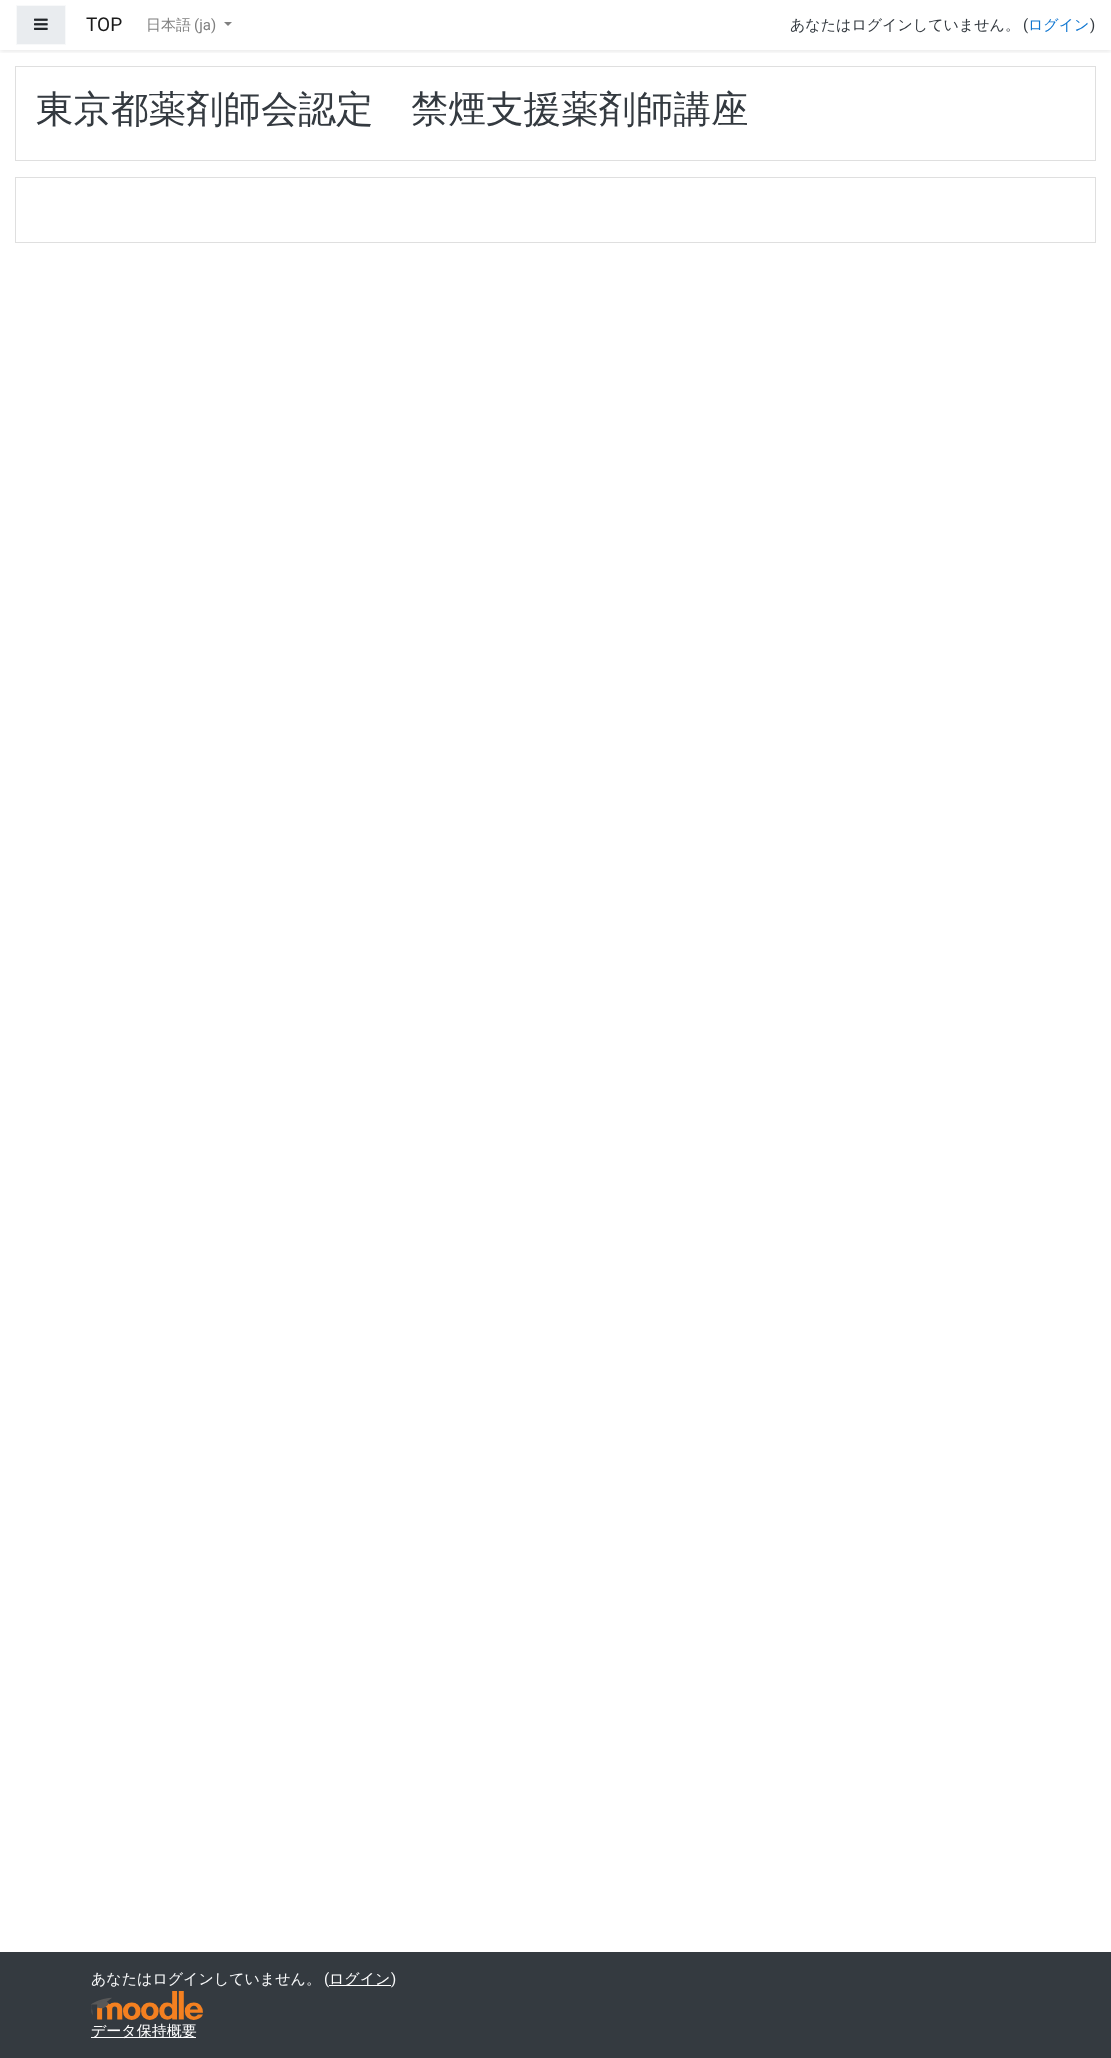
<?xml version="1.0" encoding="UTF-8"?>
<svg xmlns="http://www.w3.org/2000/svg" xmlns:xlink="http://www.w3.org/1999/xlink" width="1111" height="2058">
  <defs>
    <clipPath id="clip1"><rect x="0" y="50" width="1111" height="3" /></clipPath>
  </defs>
  <rect width="100%" height="100%" fill="#ffffff" />
  <g clip-path="url(#clip1)">
    <rect y="2" width="1111" height="50" fill="#000000" fill-opacity="0.08" filter="blur(2px)" />
  </g>
  <rect x="16.5" y="5.5" width="49" height="39" fill="#e9ecef" stroke="#f8f9fa" />
  <image x="34" y="18" width="14" height="12" xlink:href="image1.png" />
  <path d="M 224 22 h 8 l -4 4 z" fill="#808080" />
  <rect x="15.5" y="66.5" width="1080" height="94" fill="none" stroke="#dfdfdf" />
  <rect x="15.5" y="177.5" width="1080" height="65" fill="none" stroke="#dfdfdf" />
  <rect y="1952" width="1111" height="106" fill="#343a40" />
  <rect x="329" y="1985" width="62" height="1" fill="#ffffff" />
  <image x="91" y="1991" width="112" height="29" xlink:href="image2.png" />
  <rect x="91" y="2037" width="105" height="1" fill="#ffffff" />
  <text x="86" y="31" style="font-family: Roboto; font-size: 19px; fill: #1a1a1a">TOP</text>
  <text x="146" y="30" style="font-family: WenQuanYi Zen Hei; font-size: 15px; font-weight: 500; fill: #808080">日本語</text>
  <text x="194" y="30" style="font-family: Roboto; font-size: 15px; fill: #808080">(ja)</text>
  <text x="790" y="30" style="font-family: WenQuanYi Zen Hei; font-size: 15px; font-weight: 500; fill: #343a40">あなたはログインしていません。</text>
  <text x="1023" y="30" style="font-family: Roboto; font-size: 15px; fill: #343a40">(</text>
  <text x="1028" y="30" style="font-family: WenQuanYi Zen Hei; font-size: 15px; font-weight: 500; fill: #1177d1">ログイン</text>
  <text x="1090" y="30" style="font-family: Roboto; font-size: 15px; fill: #343a40">)</text>
  <text x="36" y="122" style="font-family: WenQuanYi Zen Hei; font-size: 37.5px; font-weight: 500; fill: #343a40">東京都薬剤師会認定　禁煙支援薬剤師講座</text>
  <text x="91" y="1984" style="font-family: WenQuanYi Zen Hei; font-size: 15px; font-weight: 500; fill: #f8f9fa">あなたはログインしていません。</text>
  <text x="324" y="1984" style="font-family: Roboto; font-size: 15px; fill: #f8f9fa">(</text>
  <text x="329" y="1984" style="font-family: WenQuanYi Zen Hei; font-size: 15px; font-weight: 500; fill: #ffffff">ログイン</text>
  <text x="391" y="1984" style="font-family: Roboto; font-size: 15px; fill: #f8f9fa">)</text>
  <text x="91" y="2036" style="font-family: WenQuanYi Zen Hei; font-size: 15px; font-weight: 500; fill: #ffffff">データ保持概要</text>
</svg>
